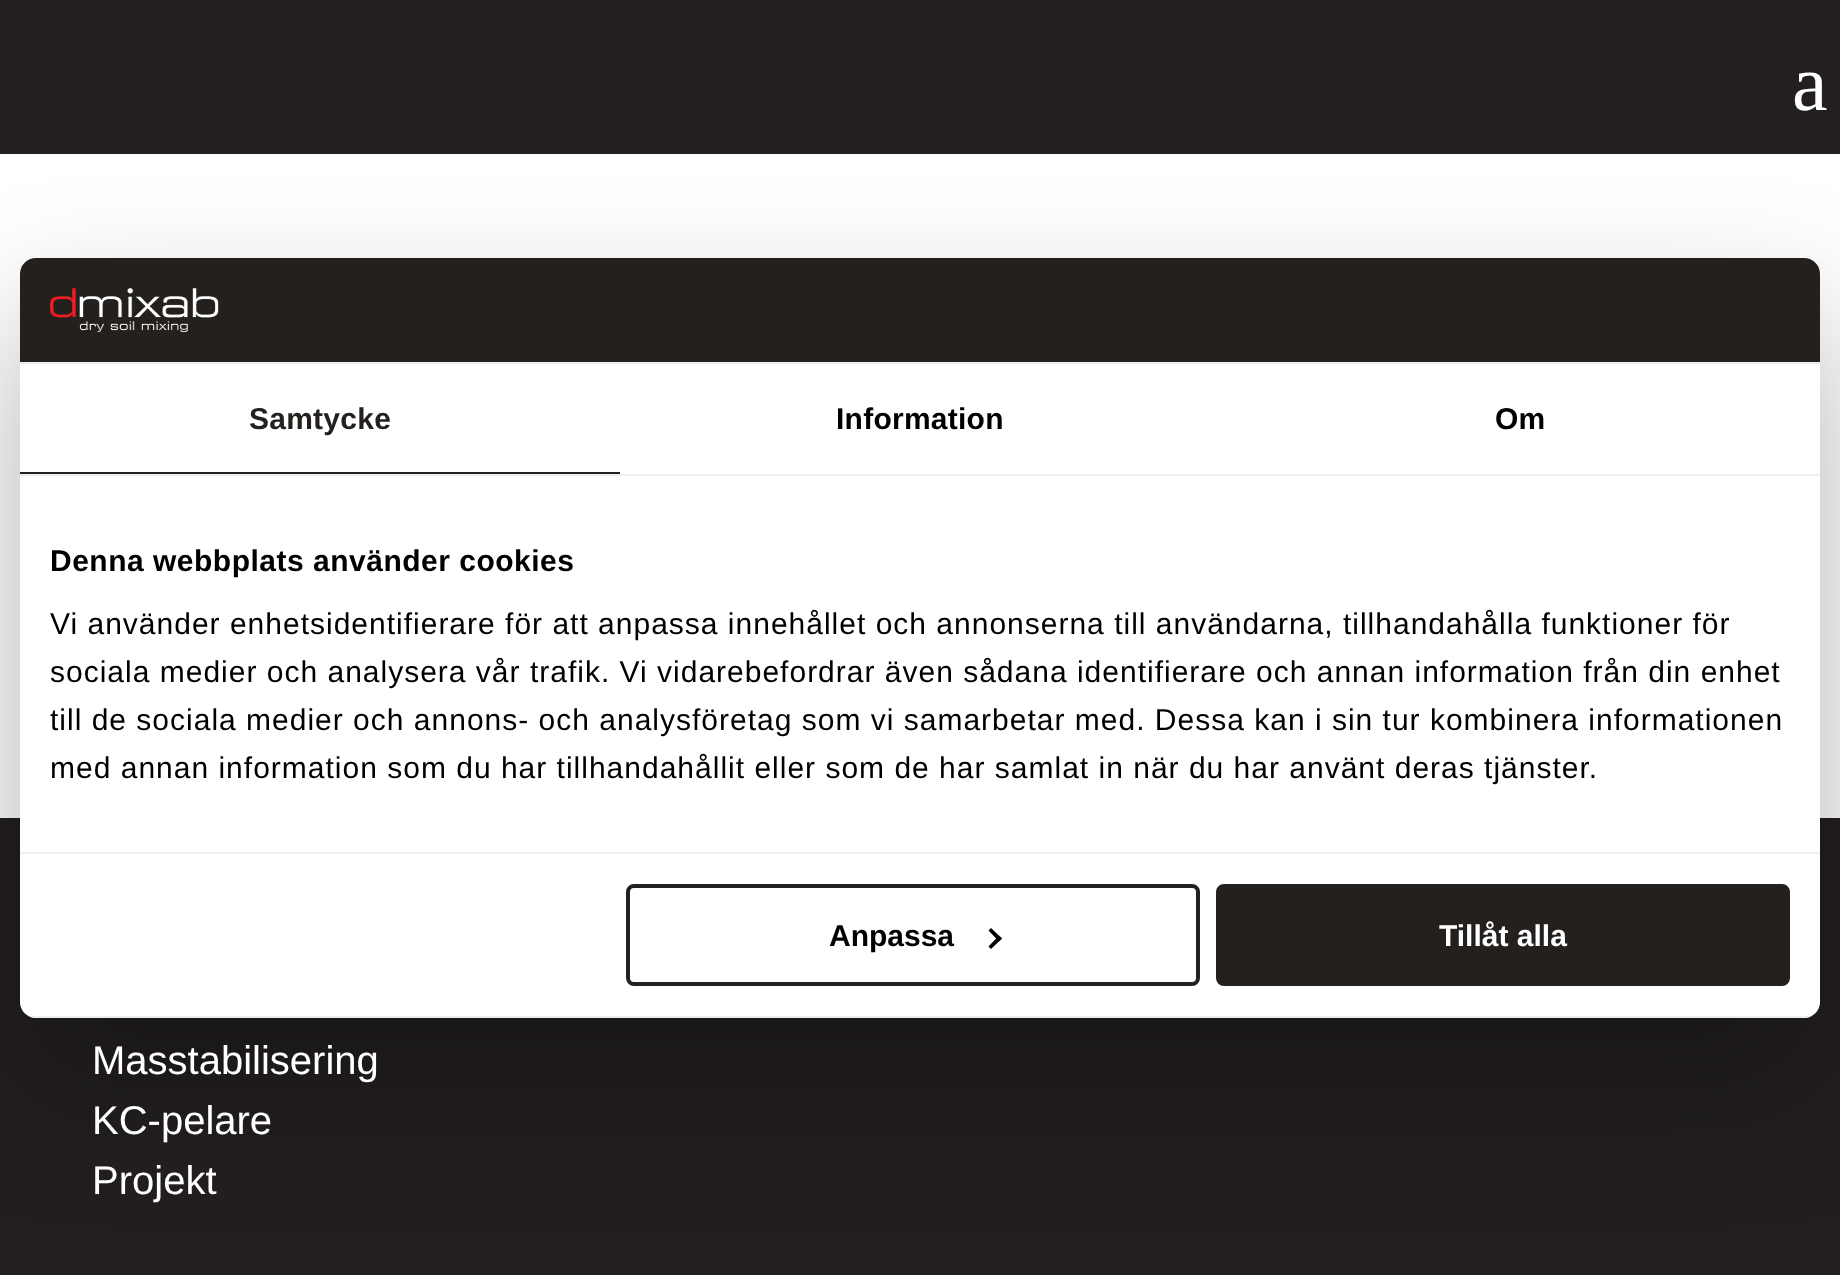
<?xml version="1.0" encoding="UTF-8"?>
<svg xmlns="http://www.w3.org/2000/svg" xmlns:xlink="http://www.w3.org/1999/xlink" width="1840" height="1275">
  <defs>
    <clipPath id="clip1"><rect x="20" y="258" width="1800" height="760" rx="16" /></clipPath>
  </defs>
  <rect width="100%" height="100%" fill="#ffffff" />
  <rect width="1840" height="154" fill="#231f20" />
  <rect y="818" width="1840" height="457" fill="#231f20" />
  <rect x="20" y="322" width="1800" height="760" rx="16" fill="#000000" fill-opacity="0.3" filter="blur(68px)" />
  <rect x="20" y="258" width="1800" height="760" rx="16" fill="#ffffff" />
  <path d="M 36 258 h 1768 c 9 0 16 7 16 16 v 90 h -1800 v -90 c 0 -9 7 -16 16 -16 z" fill="#23201e" />
  <rect x="20" y="362" width="1800" height="2" fill="#eeeeee" />
  <image x="50" y="288" width="169" height="44" xlink:href="image1.png" />
  <rect x="20" y="474" width="1800" height="2" fill="#eeeeee" />
  <rect x="20" y="472" width="600" height="2" fill="#23201e" />
  <rect x="20" y="852" width="1800" height="2" fill="#eeeeee" />
  <g clip-path="url(#clip1)">
    <rect x="20" y="1016" width="1800" height="2" fill="#eeeeee" />
  </g>
  <rect x="628" y="886" width="570" height="98" rx="6" fill="none" stroke="#23201e" stroke-width="4" />
  <path d="M 991 928 l 11 10.5 l -3 3 l -10.5 -11 z" fill="#000000" />
  <path d="M 999 935.5 l 3 3 l -11 10.5 l -2.5 -2.5 z" fill="#000000" />
  <rect x="1218" y="886" width="570" height="98" rx="6" fill="#23201e" stroke="#23201e" stroke-width="4" />
  <text x="1792" y="110" style="font-family: Liberation Serif; font-size: 80px; fill: #ffffff">a</text>
  <text x="92" y="1074" style="font-family: Liberation Sans; font-size: 40px; fill: #ffffff">Masstabilisering</text>
  <text x="92" y="1134" style="font-family: Liberation Sans; font-size: 40px; fill: #ffffff">KC-pelare</text>
  <text x="92" y="1194" style="font-family: Liberation Sans; font-size: 40px; fill: #ffffff">Projekt</text>
  <text x="249" y="429" style="font-family: Liberation Sans; font-size: 30px; font-weight: bold; letter-spacing: 0.25px; fill: #23201e">Samtycke</text>
  <text x="836" y="429" style="font-family: Liberation Sans; font-size: 30px; font-weight: bold; letter-spacing: 0.25px; fill: #000000">Information</text>
  <text x="1495" y="429" style="font-family: Liberation Sans; font-size: 30px; font-weight: bold; letter-spacing: 0.25px; fill: #000000">Om</text>
  <text x="50" y="571" style="font-family: Liberation Sans; font-size: 30px; font-weight: bold; letter-spacing: 0.5px; fill: #000000">Denna webbplats använder cookies</text>
  <text x="50" y="634" style="font-family: Liberation Sans; font-size: 30px; letter-spacing: 1px; fill: #000000">Vi använder enhetsidentifierare för att anpassa innehållet och annonserna till användarna, tillhandahålla funktioner för</text>
  <text x="50" y="682" style="font-family: Liberation Sans; font-size: 30px; letter-spacing: 1px; fill: #000000">sociala medier och analysera vår trafik. Vi vidarebefordrar även sådana identifierare och annan information från din enhet</text>
  <text x="50" y="730" style="font-family: Liberation Sans; font-size: 30px; letter-spacing: 1px; fill: #000000">till de sociala medier och annons- och analysföretag som vi samarbetar med. Dessa kan i sin tur kombinera informationen</text>
  <text x="50" y="778" style="font-family: Liberation Sans; font-size: 30px; letter-spacing: 1px; fill: #000000">med annan information som du har tillhandahållit eller som de har samlat in när du har använt deras tjänster.</text>
  <text x="829" y="946" style="font-family: Liberation Sans; font-size: 30px; font-weight: bold; fill: #000000">Anpassa</text>
  <text x="1439" y="946" style="font-family: Liberation Sans; font-size: 30px; font-weight: bold; fill: #ffffff">Tillåt alla</text>
</svg>
